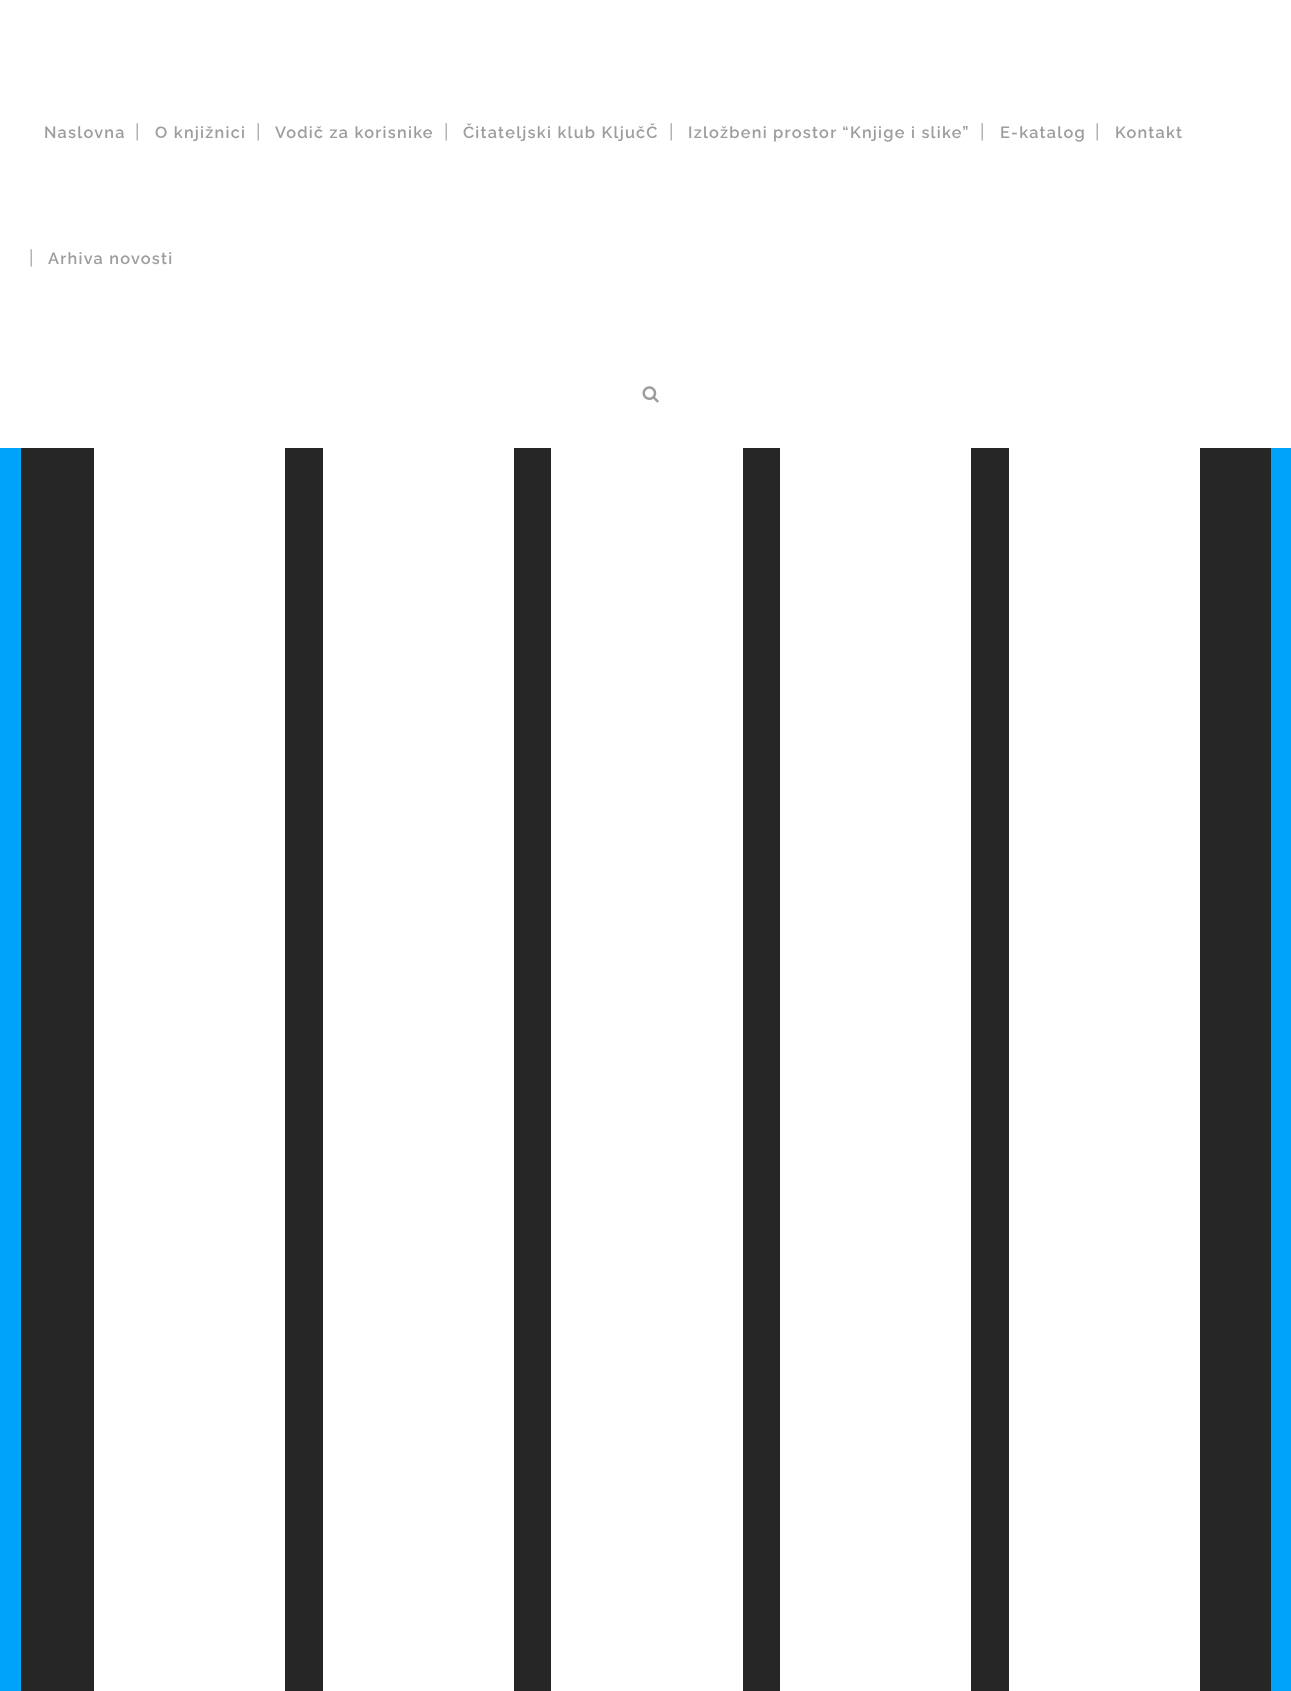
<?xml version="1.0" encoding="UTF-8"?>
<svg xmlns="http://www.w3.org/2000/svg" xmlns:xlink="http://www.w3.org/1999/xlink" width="1291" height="1691">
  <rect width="100%" height="100%" fill="#00a3fa" />
  <rect width="1291" height="448" fill="#ffffff" />
  <image x="642" y="386" width="17" height="17" xlink:href="image1.png" />
  <rect x="21" y="448" width="1250" height="1243" fill="#262626" />
  <rect x="94" y="448" width="191" height="1243" fill="#ffffff" />
  <rect x="323" y="448" width="191" height="1243" fill="#ffffff" />
  <rect x="551" y="448" width="192" height="1243" fill="#ffffff" />
  <rect x="780" y="448" width="191" height="1243" fill="#ffffff" />
  <rect x="1009" y="448" width="191" height="1243" fill="#ffffff" />
  <text x="44" y="138" style="font-family: Raleway; font-size: 16.25px; font-weight: 600; letter-spacing: 1.25px; fill: #9d9d9d">Naslovna</text>
  <text x="135" y="138" style="font-family: Raleway; font-size: 19px; fill: #9d9d9d">|</text>
  <text x="155" y="138" style="font-family: Raleway; font-size: 16.25px; font-weight: 600; letter-spacing: 1.25px; fill: #9d9d9d">O knjižnici</text>
  <text x="256" y="138" style="font-family: Raleway; font-size: 19px; fill: #9d9d9d">|</text>
  <text x="275" y="138" style="font-family: Raleway; font-size: 16.25px; font-weight: 600; letter-spacing: 1.25px; fill: #9d9d9d">Vodič za korisnike</text>
  <text x="444" y="138" style="font-family: Raleway; font-size: 19px; fill: #9d9d9d">|</text>
  <text x="463" y="138" style="font-family: Raleway; font-size: 16.25px; font-weight: 600; letter-spacing: 1.25px; fill: #9d9d9d">Čitateljski klub KljučČ</text>
  <text x="669" y="138" style="font-family: Raleway; font-size: 19px; fill: #9d9d9d">|</text>
  <text x="688" y="138" style="font-family: Raleway; font-size: 16.25px; font-weight: 600; letter-spacing: 1.25px; fill: #9d9d9d">Izložbeni prostor “Knjige i slike”</text>
  <text x="980" y="138" style="font-family: Raleway; font-size: 19px; fill: #9d9d9d">|</text>
  <text x="1000" y="138" style="font-family: Raleway; font-size: 16.25px; font-weight: 600; letter-spacing: 1.25px; fill: #9d9d9d">E-katalog</text>
  <text x="1095" y="138" style="font-family: Raleway; font-size: 19px; fill: #9d9d9d">|</text>
  <text x="1115" y="138" style="font-family: Raleway; font-size: 16.25px; font-weight: 600; letter-spacing: 1.25px; fill: #9d9d9d">Kontakt</text>
  <text x="29" y="264" style="font-family: Raleway; font-size: 19px; fill: #9d9d9d">|</text>
  <text x="48" y="264" style="font-family: Raleway; font-size: 16.25px; font-weight: 600; letter-spacing: 1.25px; fill: #9d9d9d">Arhiva novosti</text>
</svg>
